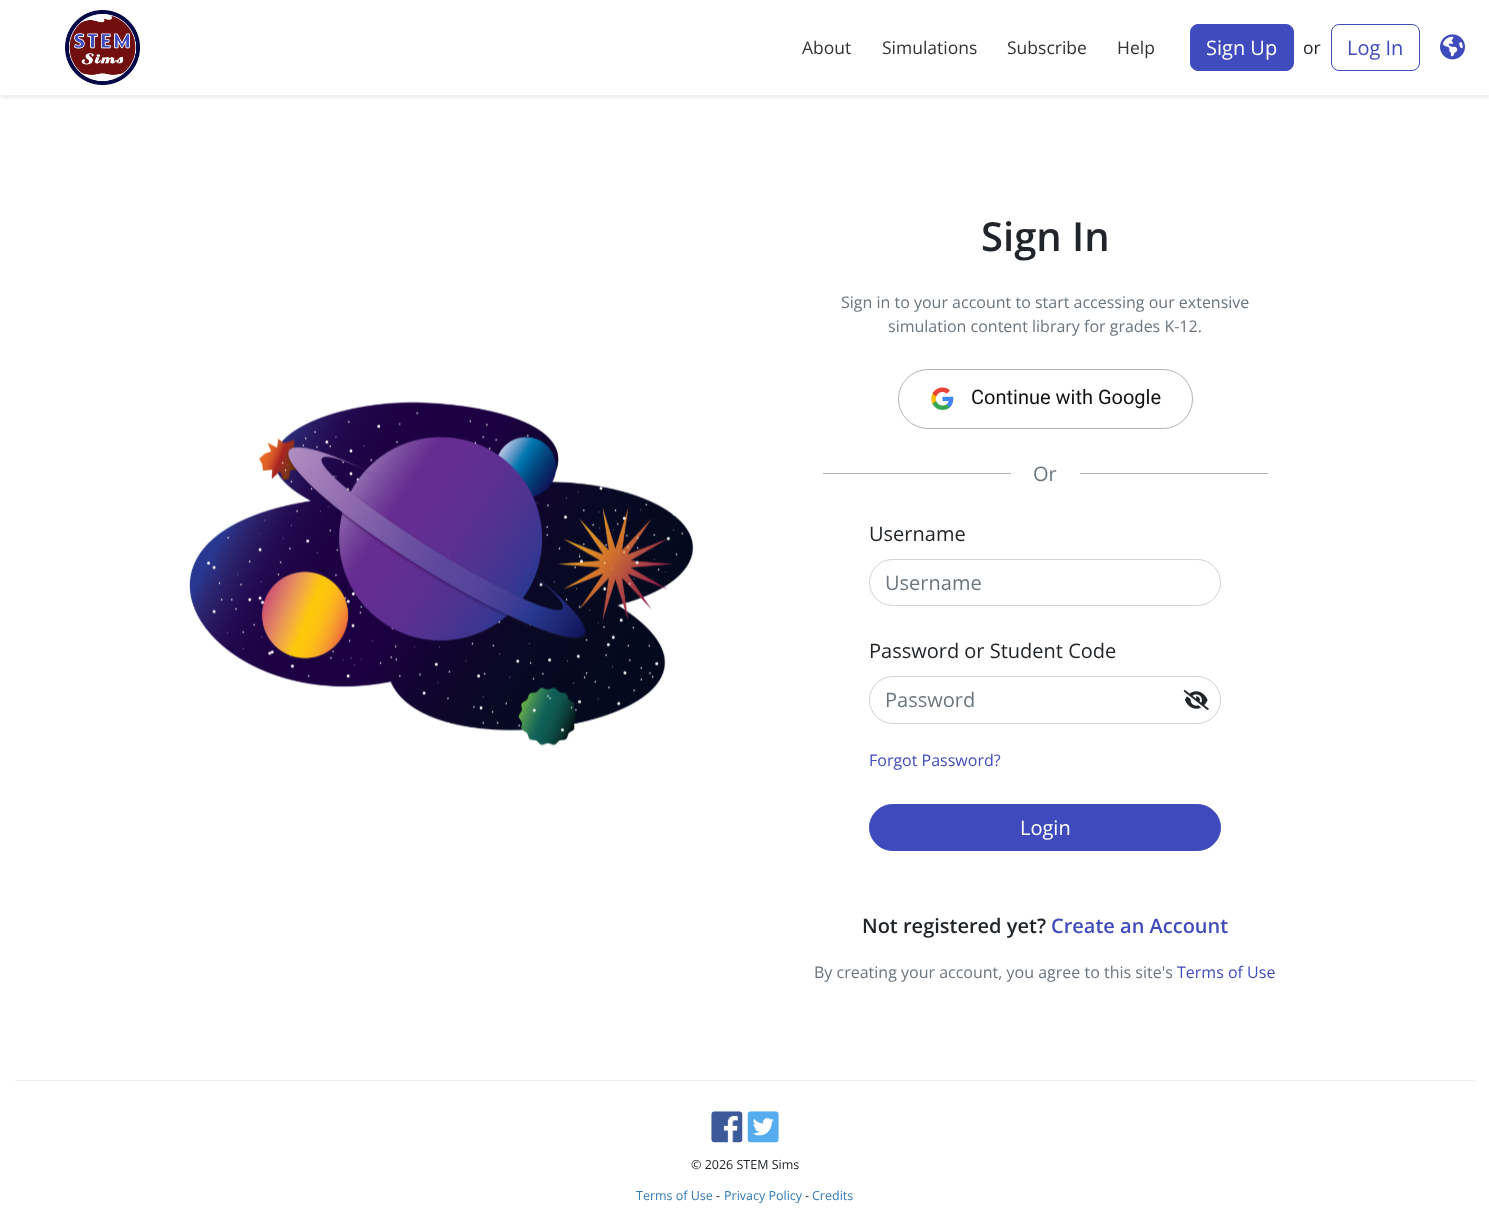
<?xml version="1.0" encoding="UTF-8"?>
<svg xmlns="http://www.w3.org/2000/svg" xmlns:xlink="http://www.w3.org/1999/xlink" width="1489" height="1213">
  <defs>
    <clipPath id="clip1"><rect x="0" y="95" width="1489" height="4" /></clipPath>
  </defs>
  <rect width="100%" height="100%" fill="#ffffff" />
  <g clip-path="url(#clip1)">
    <rect y="3" width="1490" height="95" fill="#000000" fill-opacity="0.07" filter="blur(2.5px)" />
  </g>
  <image x="65" y="10" width="75" height="75" xlink:href="image1.png" />
  <rect x="1190.5" y="24.5" width="103" height="46" rx="7.5" fill="#404bbd" stroke="#404bbd" />
  <rect x="1331.5" y="24.5" width="88" height="46" rx="7.5" fill="none" stroke="#404bbd" />
  <image x="1440" y="34" width="25" height="26" xlink:href="image2.png" />
  <image x="189" y="401" width="505" height="345" xlink:href="image3.png" />
  <rect x="898.5" y="369.5" width="294" height="59" rx="29.5" fill="none" stroke="#b5b5b8" />
  <image x="931" y="387" width="23" height="23" xlink:href="image4.png" />
  <rect x="823" y="473" width="188" height="1" fill="#b3b3b3" />
  <rect x="1080" y="473" width="188" height="1" fill="#b3b3b3" />
  <rect x="869.5" y="559.5" width="351" height="46" rx="23" fill="none" stroke="#ced4da" />
  <rect x="869.5" y="676.5" width="351" height="47" rx="23.5" fill="none" stroke="#ced4da" />
  <image x="1183" y="690" width="26" height="20" xlink:href="image5.png" />
  <rect x="869.5" y="804.5" width="351" height="46" rx="23" fill="#3f4bbc" stroke="#3f4bbc" />
  <rect x="15" y="1080" width="1460" height="1" fill="#eeeeee" />
  <image x="711" y="1111" width="32" height="32" xlink:href="image6.png" />
  <image x="747" y="1111" width="32" height="32" xlink:href="image7.png" />
  <text x="802" y="54" style="font-family: Open Sans; font-size: 17.5px; fill: #333333">About</text>
  <text x="882" y="54" style="font-family: Open Sans; font-size: 17.5px; fill: #333333">Simulations</text>
  <text x="1007" y="54" style="font-family: Open Sans; font-size: 17.5px; fill: #333333">Subscribe</text>
  <text x="1117" y="54" style="font-family: Open Sans; font-size: 17.5px; fill: #333333">Help</text>
  <text x="1206" y="55" style="font-family: Open Sans; font-size: 20px; fill: #ffffff">Sign Up</text>
  <text x="1303" y="54" style="font-family: Open Sans; font-size: 17.5px; fill: #212529">or</text>
  <text x="1347" y="55" style="font-family: Open Sans; font-size: 20px; fill: #404bbd">Log In</text>
  <text x="981" y="251" style="font-family: Open Sans; font-size: 40px; font-weight: 600; fill: #212529">Sign In</text>
  <text x="841" y="308" style="font-family: Open Sans; font-size: 16px; fill: #6c757d">Sign in to your account to start accessing our extensive</text>
  <text x="888" y="332" style="font-family: Open Sans; font-size: 16px; fill: #6c757d">simulation content library for grades K-12.</text>
  <text x="971" y="404" style="font-family: Roboto; font-size: 20px; fill: #111111">Continue with Google</text>
  <text x="1033" y="481" style="font-family: Open Sans; font-size: 20px; fill: #6c757d">Or</text>
  <text x="869" y="541" style="font-family: Open Sans; font-size: 20px; fill: #212529">Username</text>
  <text x="885" y="590" style="font-family: Open Sans; font-size: 20px; fill: #6c757d">Username</text>
  <text x="869" y="658" style="font-family: Open Sans; font-size: 20px; fill: #212529">Password or Student Code</text>
  <text x="885" y="707" style="font-family: Open Sans; font-size: 20px; fill: #6c757d">Password</text>
  <text x="869" y="766" style="font-family: Open Sans; font-size: 16px; fill: #404bbd">Forgot Password?</text>
  <text x="1020" y="835" style="font-family: Open Sans; font-size: 20px; fill: #ffffff">Login</text>
  <text x="862" y="933" style="font-family: Open Sans; font-size: 20px; font-weight: 600; fill: #212529">Not registered yet?</text>
  <text x="1051" y="933" style="font-family: Open Sans; font-size: 20px; font-weight: 600; fill: #404bbd">Create an Account</text>
  <text x="814" y="978" style="font-family: Open Sans; font-size: 16px; fill: #6c757d">By creating your account, you agree to this site's</text>
  <text x="1177" y="978" style="font-family: Open Sans; font-size: 16px; fill: #404bbd">Terms of Use</text>
  <text x="691" y="1169" style="font-family: Open Sans; font-size: 12.5px; fill: #212529">© 2026 STEM Sims</text>
  <text x="636" y="1200" style="font-family: Open Sans; font-size: 12.5px; fill: #337ab7">Terms of Use</text>
  <text x="716" y="1200" style="font-family: Open Sans; font-size: 12.5px; fill: #212529">-</text>
  <text x="724" y="1200" style="font-family: Open Sans; font-size: 12.5px; fill: #337ab7">Privacy Policy</text>
  <text x="805" y="1200" style="font-family: Open Sans; font-size: 12.5px; fill: #212529">-</text>
  <text x="812" y="1200" style="font-family: Open Sans; font-size: 12.5px; fill: #337ab7">Credits</text>
</svg>
